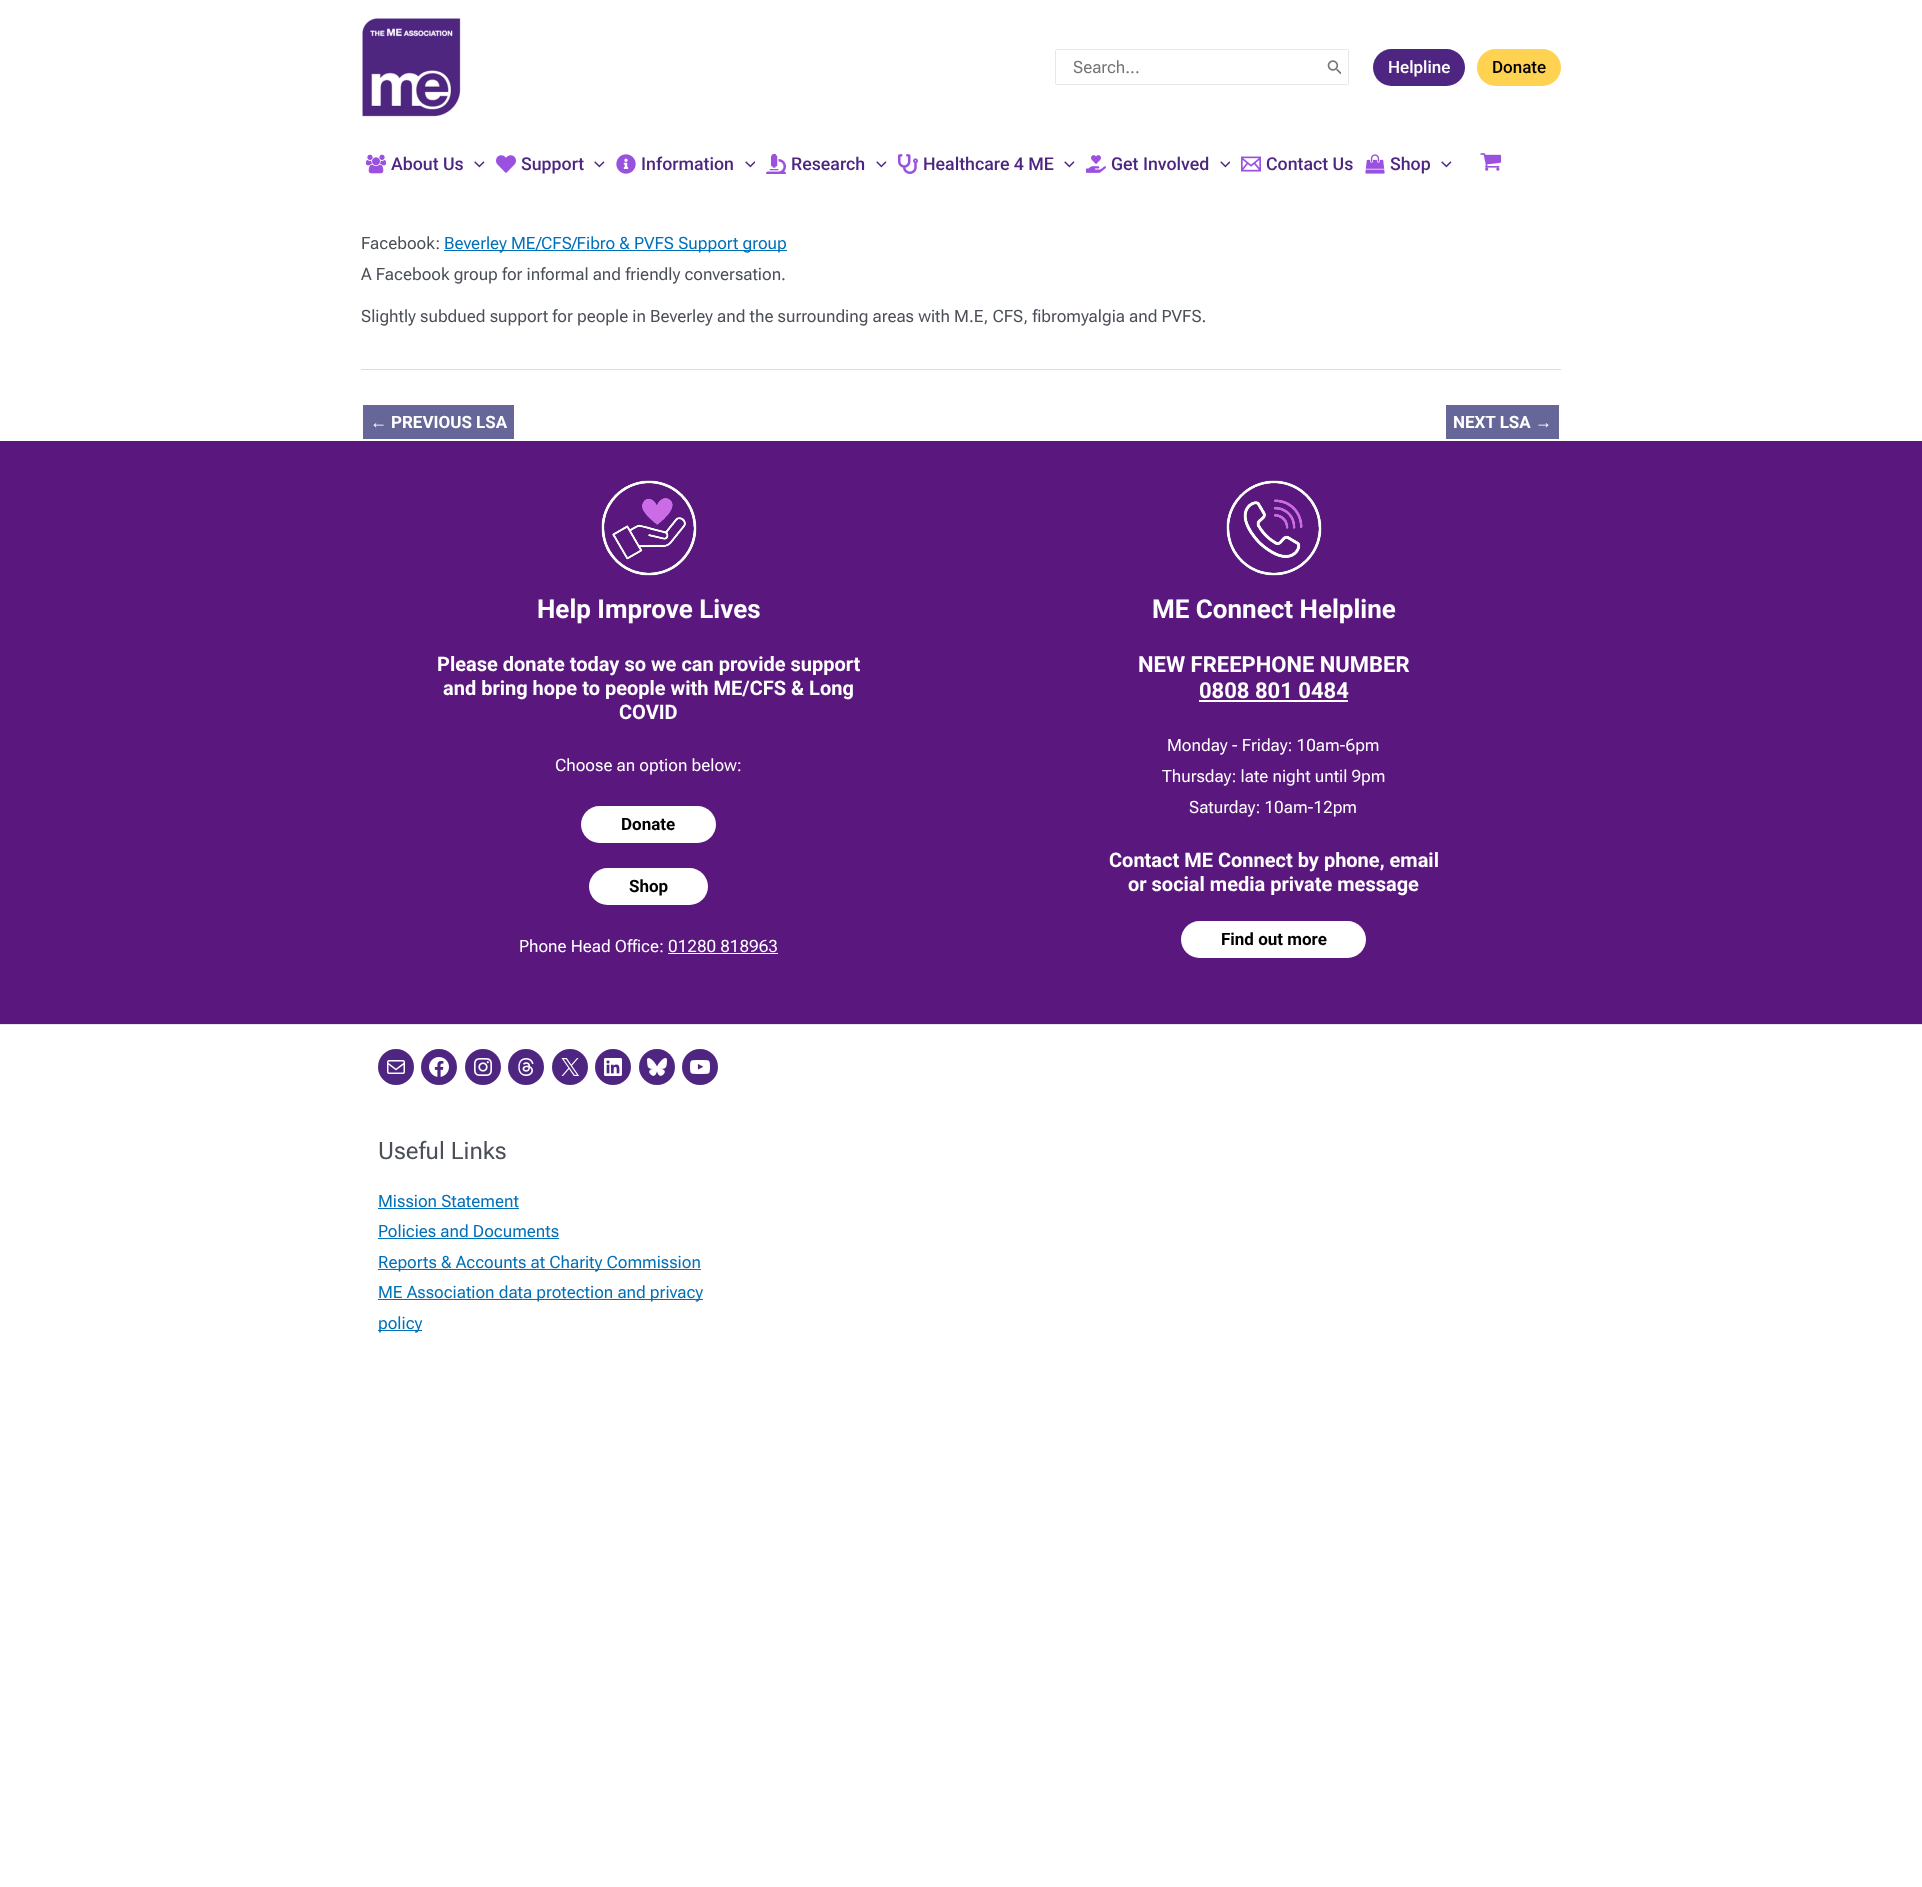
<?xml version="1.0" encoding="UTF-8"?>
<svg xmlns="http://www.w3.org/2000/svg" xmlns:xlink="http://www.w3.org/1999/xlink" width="1922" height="1887">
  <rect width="100%" height="100%" fill="#ffffff" />
  <image x="362" y="18" width="99" height="99" xlink:href="image1.png" />
  <rect x="1055.5" y="49.5" width="293" height="35" rx="1.5" fill="none" stroke="#e7e7e7" />
  <rect x="1056" y="50" width="292" height="34" fill="#ffffff" />
  <image x="1327" y="60" width="14" height="15" xlink:href="image2.png" />
  <rect x="1373" y="49" width="92" height="37" rx="18.5" fill="#4e2681" />
  <rect x="1477" y="49" width="84" height="37" rx="18.5" fill="#ffd251" />
  <image x="366" y="154" width="20" height="20" xlink:href="image3.png" />
  <image x="474" y="161" width="11" height="7" xlink:href="image4.png" />
  <image x="496" y="155" width="20" height="18" xlink:href="image5.png" />
  <image x="594" y="161" width="11" height="7" xlink:href="image4.png" />
  <image x="616" y="154" width="20" height="20" xlink:href="image6.png" />
  <image x="745" y="161" width="10" height="7" xlink:href="image7.png" />
  <image x="766" y="154" width="20" height="20" xlink:href="image8.png" />
  <image x="876" y="161" width="11" height="7" xlink:href="image4.png" />
  <image x="898" y="154" width="20" height="20" xlink:href="image9.png" />
  <image x="1064" y="161" width="11" height="7" xlink:href="image4.png" />
  <image x="1086" y="155" width="20" height="18" xlink:href="image10.png" />
  <image x="1220" y="161" width="10" height="7" xlink:href="image7.png" />
  <image x="1241" y="156" width="20" height="16" xlink:href="image11.png" />
  <image x="1365" y="154" width="20" height="20" xlink:href="image12.png" />
  <image x="1441" y="161" width="11" height="7" xlink:href="image4.png" />
  <image x="1480" y="153" width="22" height="18" xlink:href="image13.png" />
  <rect x="444" y="250" width="343" height="1" fill="#0170b9" />
  <rect x="361" y="369" width="1200" height="1" fill="#dddddd" />
  <rect x="363" y="405" width="151" height="34" fill="#666699" />
  <rect x="1446" y="405" width="113" height="34" fill="#666699" />
  <rect y="441" width="1922" height="583" fill="#5a177e" />
  <image x="601" y="480" width="96" height="96" xlink:href="image14.png" />
  <rect x="581" y="806" width="135" height="37" rx="18.5" fill="#ffffff" />
  <rect x="589" y="868" width="119" height="37" rx="18.5" fill="#ffffff" />
  <rect x="668" y="953" width="110" height="1" fill="#ffffff" />
  <image x="1226" y="480" width="96" height="96" xlink:href="image15.png" />
  <rect x="1199" y="700" width="149" height="2" fill="#ffffff" />
  <rect x="1181" y="921" width="185" height="37" rx="18.5" fill="#ffffff" />
  <rect y="1024" width="1922" height="1" fill="#e6e6e6" />
  <circle cx="396" cy="1067" r="18" fill="#4e2681" />
  <image x="387" y="1060" width="18" height="14" xlink:href="image16.png" />
  <circle cx="439" cy="1067" r="18" fill="#4e2681" />
  <image x="429" y="1057" width="20" height="20" xlink:href="image17.png" />
  <circle cx="483" cy="1067" r="18" fill="#4e2681" />
  <image x="474" y="1058" width="18" height="18" xlink:href="image18.png" />
  <circle cx="526" cy="1067" r="18" fill="#4e2681" />
  <image x="518" y="1058" width="16" height="18" xlink:href="image19.png" />
  <circle cx="570" cy="1067" r="18" fill="#4e2681" />
  <image x="561" y="1058" width="18" height="18" xlink:href="image20.png" />
  <circle cx="613" cy="1067" r="18" fill="#4e2681" />
  <image x="604" y="1058" width="18" height="18" xlink:href="image21.png" />
  <circle cx="657" cy="1067" r="18" fill="#4e2681" />
  <image x="647" y="1058" width="20" height="18" xlink:href="image22.png" />
  <circle cx="700" cy="1067" r="18" fill="#4e2681" />
  <image x="690" y="1060" width="20" height="14" xlink:href="image23.png" />
  <rect x="378" y="1208" width="141" height="1" fill="#0170b9" />
  <rect x="378" y="1238" width="181" height="1" fill="#0170b9" />
  <rect x="378" y="1269" width="323" height="1" fill="#0170b9" />
  <rect x="378" y="1299" width="325" height="1" fill="#0170b9" />
  <rect x="378" y="1330" width="44" height="1" fill="#0170b9" />
  <text x="1073" y="73" style="font-family: Roboto Flex; font-size: 17px; fill: #757575">Search...</text>
  <text x="1388" y="73" style="font-family: Roboto; font-size: 17px; font-weight: 500; fill: #ffffff">Helpline</text>
  <text x="1492" y="73" style="font-family: Roboto; font-size: 17px; font-weight: 500; fill: #000000">Donate</text>
  <text x="391" y="170" style="font-family: Roboto; font-size: 17.75px; font-weight: 500; fill: #4e2681">About Us</text>
  <text x="521" y="170" style="font-family: Roboto; font-size: 17.75px; font-weight: 500; fill: #4e2681">Support</text>
  <text x="641" y="170" style="font-family: Roboto; font-size: 17.75px; font-weight: 500; fill: #4e2681">Information</text>
  <text x="791" y="170" style="font-family: Roboto; font-size: 17.75px; font-weight: 500; fill: #4e2681">Research</text>
  <text x="923" y="170" style="font-family: Roboto; font-size: 17.75px; font-weight: 500; fill: #4e2681">Healthcare 4 ME</text>
  <text x="1111" y="170" style="font-family: Roboto; font-size: 17.75px; font-weight: 500; fill: #4e2681">Get Involved</text>
  <text x="1266" y="170" style="font-family: Roboto; font-size: 17.75px; font-weight: 500; fill: #4e2681">Contact Us</text>
  <text x="1390" y="170" style="font-family: Roboto; font-size: 17.75px; font-weight: 500; fill: #4e2681">Shop</text>
  <text x="361" y="249" style="font-family: Roboto Flex; font-size: 17px; fill: #4b4f58">Facebook:</text>
  <text x="444" y="249" style="font-family: Roboto Flex; font-size: 17px; fill: #0170b9">Beverley ME/CFS/Fibro &amp; PVFS Support group</text>
  <text x="361" y="280" style="font-family: Roboto Flex; font-size: 17px; fill: #4b4f58">A Facebook group for informal and friendly conversation.</text>
  <text x="361" y="322" style="font-family: Roboto Flex; font-size: 17px; fill: #4b4f58">Slightly subdued support for people in Beverley and the surrounding areas with M.E, CFS, fibromyalgia and PVFS.</text>
  <text x="370" y="428" style="font-family: Liberation Sans; font-size: 17px; font-weight: bold; fill: #ffffff">←</text>
  <text x="391" y="428" style="font-family: Roboto; font-size: 17px; font-weight: bold; fill: #ffffff">PREVIOUS LSA</text>
  <text x="1453" y="428" style="font-family: Roboto; font-size: 17px; font-weight: bold; fill: #ffffff">NEXT LSA</text>
  <text x="1535" y="428" style="font-family: Liberation Sans; font-size: 17px; font-weight: bold; fill: #ffffff">→</text>
  <text x="537" y="618" style="font-family: Roboto; font-size: 26px; font-weight: bold; fill: #ffffff">Help Improve Lives</text>
  <text x="437" y="671" style="font-family: Roboto; font-size: 20px; font-weight: bold; fill: #ffffff">Please donate today so we can provide support</text>
  <text x="443" y="695" style="font-family: Roboto; font-size: 20px; font-weight: bold; fill: #ffffff">and bring hope to people with ME/CFS &amp; Long</text>
  <text x="619" y="719" style="font-family: Roboto; font-size: 20px; font-weight: bold; fill: #ffffff">COVID</text>
  <text x="555" y="771" style="font-family: Roboto Flex; font-size: 17px; fill: #ffffff">Choose an option below:</text>
  <text x="621" y="830" style="font-family: Roboto; font-size: 17px; font-weight: bold; fill: #000000">Donate</text>
  <text x="629" y="892" style="font-family: Roboto; font-size: 17px; font-weight: bold; fill: #000000">Shop</text>
  <text x="519" y="952" style="font-family: Roboto Flex; font-size: 17px; fill: #ffffff">Phone Head Office: 01280 818963</text>
  <text x="1152" y="618" style="font-family: Roboto; font-size: 26px; font-weight: bold; fill: #ffffff">ME Connect Helpline</text>
  <text x="1138" y="672" style="font-family: Roboto; font-size: 22px; font-weight: bold; fill: #ffffff">NEW FREEPHONE NUMBER</text>
  <text x="1199" y="698" style="font-family: Roboto; font-size: 22px; font-weight: bold; fill: #ffffff">0808 801 0484</text>
  <text x="1167" y="751" style="font-family: Roboto Flex; font-size: 17px; fill: #ffffff">Monday - Friday: 10am-6pm</text>
  <text x="1162" y="782" style="font-family: Roboto Flex; font-size: 17px; fill: #ffffff">Thursday: late night until 9pm</text>
  <text x="1189" y="813" style="font-family: Roboto Flex; font-size: 17px; fill: #ffffff">Saturday: 10am-12pm</text>
  <text x="1109" y="867" style="font-family: Roboto; font-size: 20px; font-weight: bold; fill: #ffffff">Contact ME Connect by phone, email</text>
  <text x="1128" y="891" style="font-family: Roboto; font-size: 20px; font-weight: bold; fill: #ffffff">or social media private message</text>
  <text x="1221" y="945" style="font-family: Roboto; font-size: 17px; font-weight: bold; fill: #000000">Find out more</text>
  <text x="378" y="1159" style="font-family: Roboto Flex; font-size: 24px; fill: #4b4f58">Useful Links</text>
  <text x="378" y="1207" style="font-family: Roboto Flex; font-size: 17px; fill: #0170b9">Mission Statement</text>
  <text x="378" y="1237" style="font-family: Roboto Flex; font-size: 17px; fill: #0170b9">Policies and Documents</text>
  <text x="378" y="1268" style="font-family: Roboto Flex; font-size: 17px; fill: #0170b9">Reports &amp; Accounts at Charity Commission</text>
  <text x="378" y="1298" style="font-family: Roboto Flex; font-size: 17px; fill: #0170b9">ME Association data protection and privacy</text>
  <text x="378" y="1329" style="font-family: Roboto Flex; font-size: 17px; fill: #0170b9">policy</text>
</svg>
